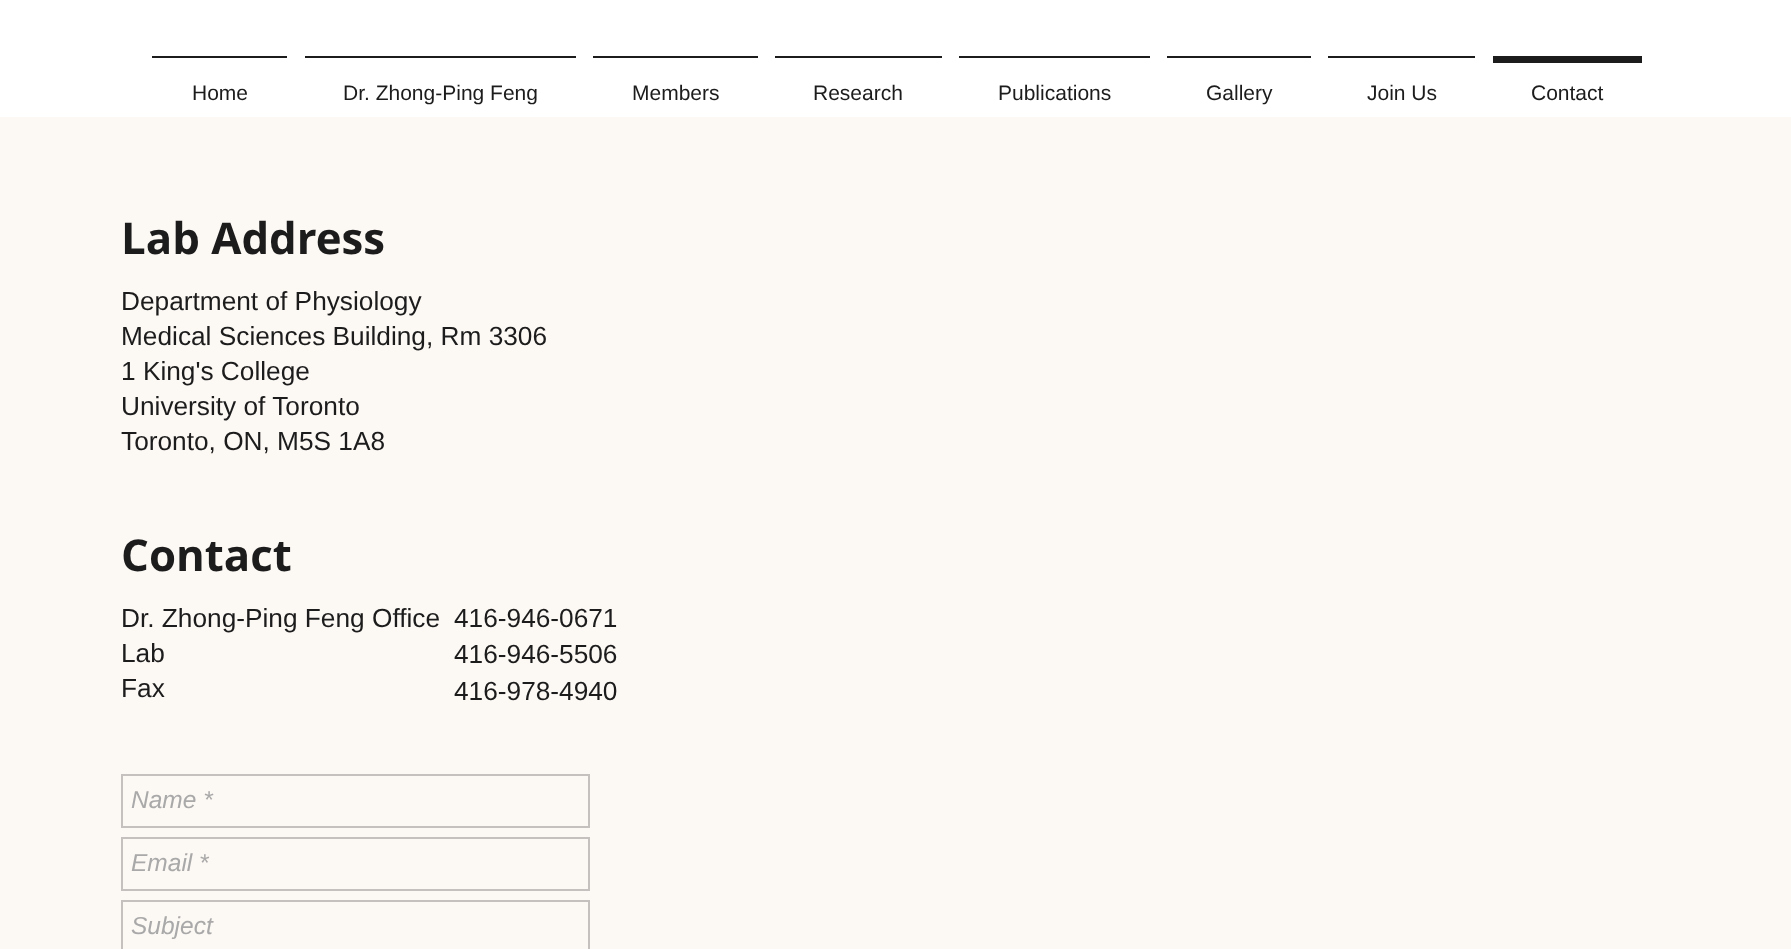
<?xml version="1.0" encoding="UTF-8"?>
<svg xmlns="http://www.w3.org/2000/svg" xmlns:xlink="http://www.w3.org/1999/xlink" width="1791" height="949">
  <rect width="100%" height="100%" fill="#fcf8f4" />
  <rect width="1791" height="117" fill="#ffffff" />
  <rect x="152" y="56" width="135" height="2" fill="#1c1c1c" />
  <rect x="305" y="56" width="271" height="2" fill="#1c1c1c" />
  <rect x="593" y="56" width="165" height="2" fill="#1c1c1c" />
  <rect x="775" y="56" width="167" height="2" fill="#1c1c1c" />
  <rect x="959" y="56" width="191" height="2" fill="#1c1c1c" />
  <rect x="1167" y="56" width="144" height="2" fill="#1c1c1c" />
  <rect x="1328" y="56" width="147" height="2" fill="#1c1c1c" />
  <rect x="1493" y="56" width="149" height="7" fill="#1c1c1c" />
  <rect x="122" y="775" width="467" height="52" fill="none" stroke="#c4c1be" stroke-width="2" />
  <rect x="122" y="838" width="467" height="52" fill="none" stroke="#c4c1be" stroke-width="2" />
  <rect x="122" y="901" width="467" height="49" fill="none" stroke="#c4c1be" stroke-width="2" />
  <text x="192" y="100" style="font-family: Liberation Sans; font-size: 21px; fill: #1c1c1c">Home</text>
  <text x="343" y="100" style="font-family: Liberation Sans; font-size: 21px; fill: #1c1c1c">Dr. Zhong-Ping Feng</text>
  <text x="632" y="100" style="font-family: Liberation Sans; font-size: 21px; fill: #1c1c1c">Members</text>
  <text x="813" y="100" style="font-family: Liberation Sans; font-size: 21px; fill: #1c1c1c">Research</text>
  <text x="998" y="100" style="font-family: Liberation Sans; font-size: 21px; fill: #1c1c1c">Publications</text>
  <text x="1206" y="100" style="font-family: Liberation Sans; font-size: 21px; fill: #1c1c1c">Gallery</text>
  <text x="1367" y="100" style="font-family: Liberation Sans; font-size: 21px; fill: #1c1c1c">Join Us</text>
  <text x="1531" y="100" style="font-family: Liberation Sans; font-size: 21px; fill: #1c1c1c">Contact</text>
  <text x="121" y="254" style="font-family: Open Sans; font-size: 43.75px; font-weight: bold; fill: #1c1c1c">Lab Address</text>
  <text x="121" y="310" style="font-family: Liberation Sans; font-size: 26.25px; fill: #1c1c1c">Department of Physiology</text>
  <text x="121" y="345" style="font-family: Liberation Sans; font-size: 26.25px; fill: #1c1c1c">Medical Sciences Building, Rm 3306</text>
  <text x="121" y="380" style="font-family: Liberation Sans; font-size: 26.25px; fill: #1c1c1c">1 King's College</text>
  <text x="121" y="415" style="font-family: Liberation Sans; font-size: 26.25px; fill: #1c1c1c">University of Toronto</text>
  <text x="121" y="450" style="font-family: Liberation Sans; font-size: 26.25px; fill: #1c1c1c">Toronto, ON, M5S 1A8</text>
  <text x="121" y="571" style="font-family: Open Sans; font-size: 43.75px; font-weight: bold; fill: #1c1c1c">Contact</text>
  <text x="121" y="627" style="font-family: Liberation Sans; font-size: 26.25px; fill: #1c1c1c">Dr. Zhong-Ping Feng Office</text>
  <text x="121" y="662" style="font-family: Liberation Sans; font-size: 26.25px; fill: #1c1c1c">Lab</text>
  <text x="121" y="697" style="font-family: Liberation Sans; font-size: 26.25px; fill: #1c1c1c">Fax</text>
  <text x="454" y="627" style="font-family: Liberation Sans; font-size: 26.25px; fill: #1c1c1c">416-946-0671</text>
  <text x="454" y="663" style="font-family: Liberation Sans; font-size: 26.25px; fill: #1c1c1c">416-946-5506</text>
  <text x="454" y="700" style="font-family: Liberation Sans; font-size: 26.25px; fill: #1c1c1c">416-978-4940</text>
  <text x="131" y="808" style="font-family: Liberation Sans; font-size: 24.5px; font-style: italic; fill: #a9a9a9">Name *</text>
  <text x="131" y="871" style="font-family: Liberation Sans; font-size: 24.5px; font-style: italic; fill: #a9a9a9">Email *</text>
  <text x="131" y="934" style="font-family: Liberation Sans; font-size: 24.5px; font-style: italic; fill: #a9a9a9">Subject</text>
</svg>
